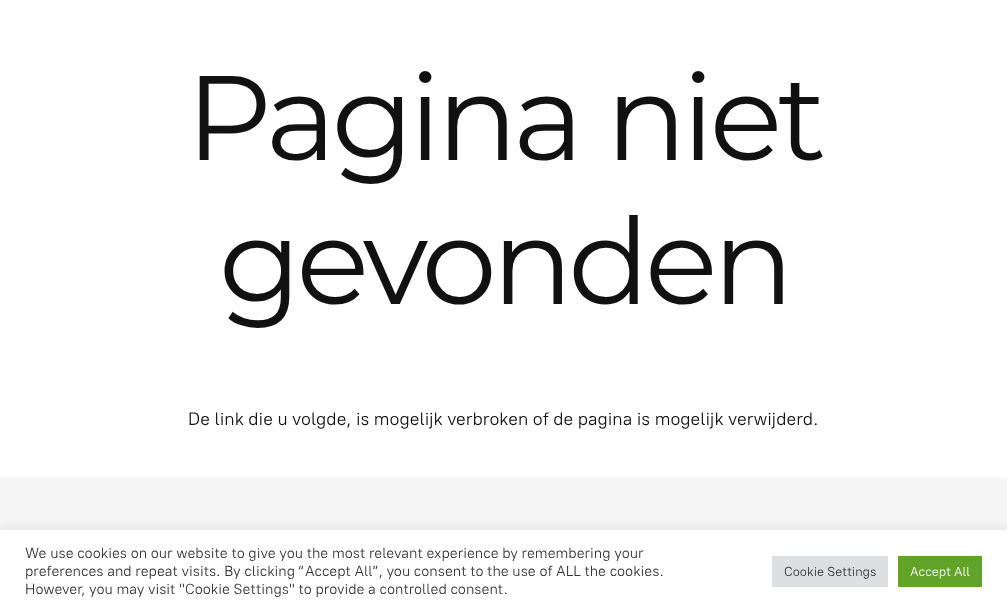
<?xml version="1.0" encoding="UTF-8"?>
<svg xmlns="http://www.w3.org/2000/svg" xmlns:xlink="http://www.w3.org/1999/xlink" width="1007" height="612">
  <rect width="100%" height="100%" fill="#f5f5f5" />
  <rect width="1007" height="478" fill="#ffffff" />
  <rect y="529" width="1007" height="82" fill="#acabab" fill-opacity="0.3" filter="blur(5px)" />
  <rect y="530" width="1007" height="82" fill="#ffffff" />
  <rect x="772" y="556" width="116" height="31" fill="#dedfe0" />
  <rect x="898" y="556" width="84" height="31" fill="#61a229" />
  <text x="186" y="160" style="font-family: Montserrat; font-size: 120px; letter-spacing: -4.75px; fill: #111111">Pagina niet</text>
  <text x="219" y="304" style="font-family: Montserrat; font-size: 120px; letter-spacing: -4.75px; fill: #111111">gevonden</text>
  <text x="188" y="425" style="font-family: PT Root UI; font-size: 18px; fill: #111111">De link die u volgde, is mogelijk verbroken of de pagina is mogelijk verwijderd.</text>
  <text x="25" y="558" style="font-family: PT Root UI; font-size: 14.65px; fill: #333333">We use cookies on our website to give you the most relevant experience by remembering your</text>
  <text x="25" y="576" style="font-family: PT Root UI; font-size: 14.65px; fill: #333333">preferences and repeat visits. By clicking “Accept All”, you consent to the use of ALL the cookies.</text>
  <text x="25" y="594" style="font-family: PT Root UI; font-size: 14.65px; fill: #333333">However, you may visit "Cookie Settings" to provide a controlled consent.</text>
  <text x="784" y="576" style="font-family: PT Root UI; font-size: 13px; fill: #333333">Cookie Settings</text>
  <text x="910" y="576" style="font-family: PT Root UI; font-size: 13px; fill: #ffffff">Accept All</text>
</svg>
